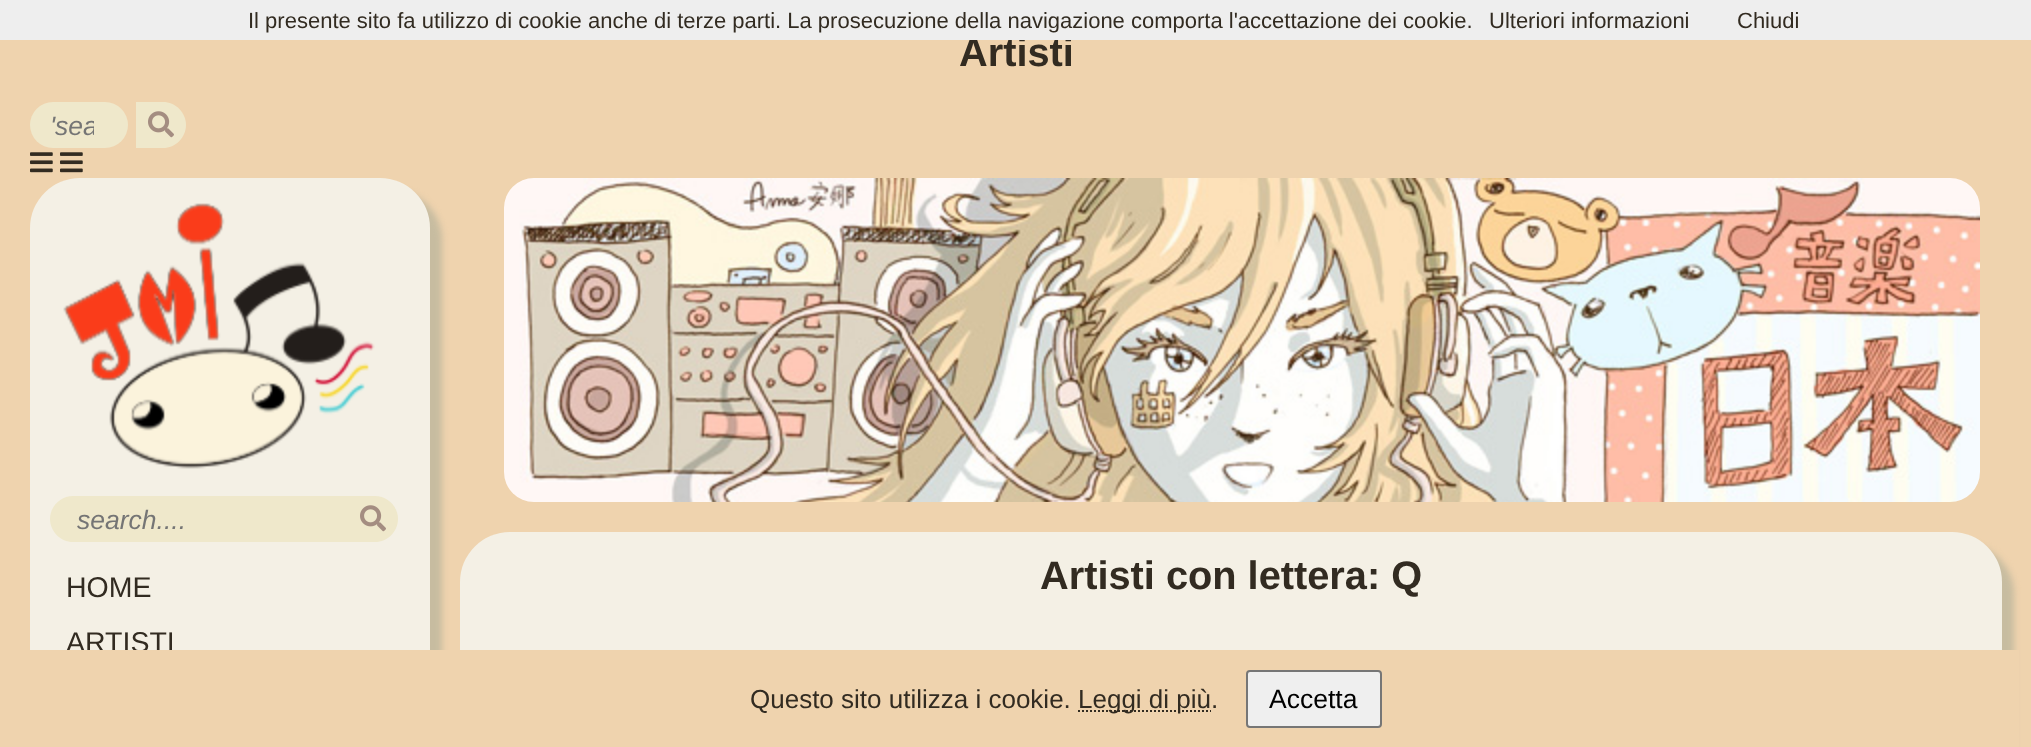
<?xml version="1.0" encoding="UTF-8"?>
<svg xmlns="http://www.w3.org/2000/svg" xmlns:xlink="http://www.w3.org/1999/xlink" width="2031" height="747">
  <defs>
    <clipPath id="clip1"><rect x="50" y="110" width="44" height="30" /></clipPath>
  </defs>
  <rect width="100%" height="100%" fill="#efd3ae" />
  <rect x="30" y="102" width="98" height="46" rx="23" fill="#efe8cb" />
  <path d="M 136 102 h 27 c 12.5 0 23 10.5 23 23 c 0 12.5 -10.5 23 -23 23 h -27 z" fill="#efe8cb" />
  <image x="148" y="111" width="26" height="27" xlink:href="image1.png" />
  <image x="30" y="152" width="23" height="21" xlink:href="image2.png" />
  <image x="60" y="152" width="23" height="21" xlink:href="image2.png" />
  <image x="504" y="178" width="1476" height="324" xlink:href="image3.png" />
  <rect x="42" y="190" width="400" height="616" rx="50" fill="#c7bca0" filter="blur(3px)" />
  <rect x="30" y="178" width="400" height="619" rx="50" fill="#f4f0e5" />
  <image x="63" y="203" width="312" height="266" xlink:href="image4.png" />
  <path d="M 73 496 h 275 v 46 h -275 c -12.5 0 -23 -10.5 -23 -23 c 0 -12.5 10.5 -23 23 -23 z" fill="#efe8cb" />
  <path d="M 348 496 h 27 c 12.5 0 23 10.5 23 23 c 0 12.5 -10.5 23 -23 23 h -27 z" fill="#efe8cb" />
  <image x="360" y="505" width="26" height="27" xlink:href="image1.png" />
  <rect x="472" y="544" width="1542" height="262" rx="50" fill="#c7bca0" filter="blur(3px)" />
  <rect x="460" y="532" width="1542" height="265" rx="50" fill="#f4f0e5" />
  <text x="959" y="66" style="font-family: Liberation Sans; font-size: 39.75px; font-weight: bold; fill: #322b21">Artisti</text>
  <rect width="2031" height="40" fill="#eeeeee" />
  <text x="1737" y="28" style="font-family: Liberation Sans; font-size: 22px; fill: #322b21">Chiudi</text>
  <text x="1489" y="28" style="font-family: Liberation Sans; font-size: 22px; fill: #322b21">Ulteriori informazioni</text>
  <text x="248" y="28" style="font-family: Liberation Sans; font-size: 22px; fill: #322b21">Il presente sito fa utilizzo di cookie anche di terze parti. La prosecuzione della navigazione comporta l'accettazione dei cookie.</text>
  <g clip-path="url(#clip1)">
    <text x="50" y="135" style="font-family: Liberation Sans; font-size: 26.5px; font-style: italic; fill: #757575">'sea</text>
  </g>
  <text x="77" y="529" style="font-family: Liberation Sans; font-size: 26.5px; font-style: italic; fill: #757575">search....</text>
  <text x="66" y="597" style="font-family: Liberation Sans; font-size: 28.5px; fill: #322b21">HOME</text>
  <text x="66" y="652" style="font-family: Liberation Sans; font-size: 28.5px; fill: #322b21">ARTISTI</text>
  <text x="1040" y="589" style="font-family: Liberation Sans; font-size: 39.75px; font-weight: bold; fill: #322b21">Artisti con lettera: Q</text>
  <rect x="30" y="650" width="1989" height="97" fill="#efd3ae" />
  <text x="750" y="708" style="font-family: Liberation Sans; font-size: 26px; fill: #322b21">Questo sito utilizza i cookie.</text>
  <path d="M 1078 711 h 133" fill="none" stroke="#322b21" stroke-width="2" stroke-dasharray="2 2" />
  <text x="1078" y="708" style="font-family: Liberation Sans; font-size: 26px; fill: #322b21">Leggi di più.</text>
  <rect x="1247" y="671" width="134" height="56" rx="3" fill="#efefef" stroke="#767676" stroke-width="2" />
  <text x="1269" y="708" style="font-family: Liberation Sans; font-size: 26.5px; fill: #000000">Accetta</text>
</svg>
